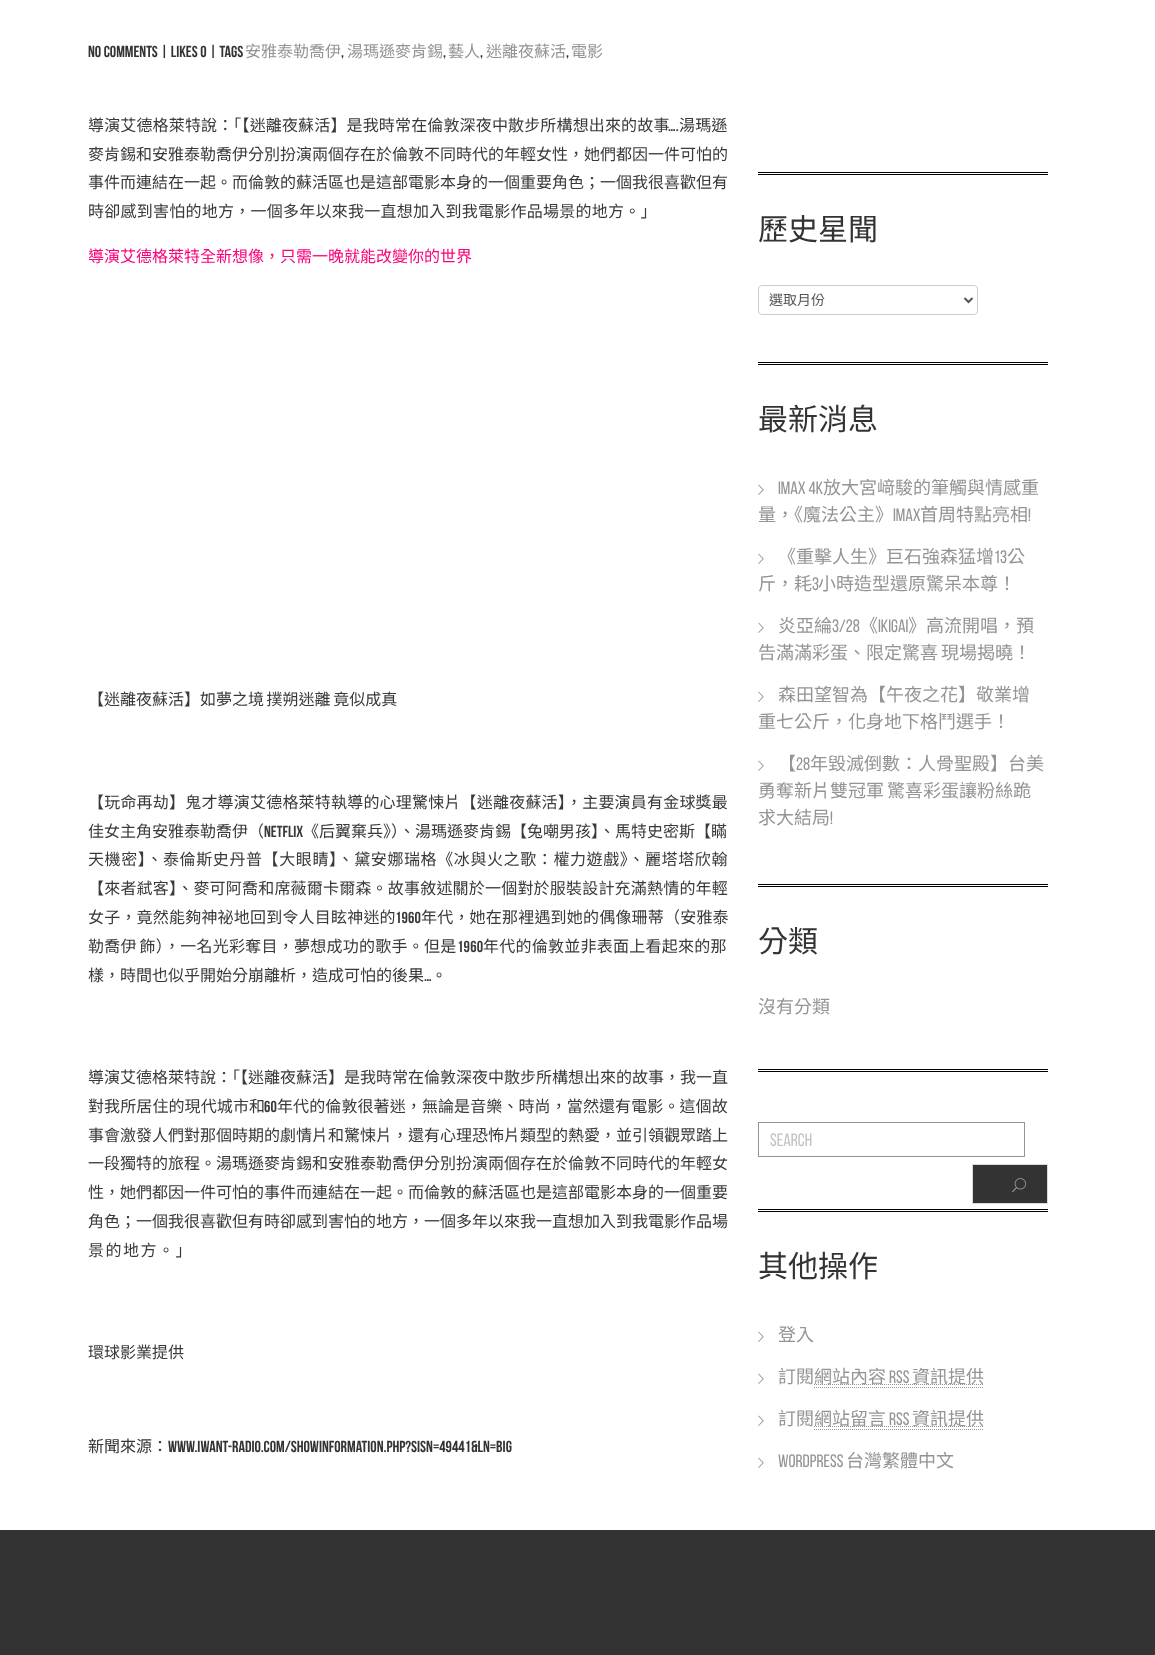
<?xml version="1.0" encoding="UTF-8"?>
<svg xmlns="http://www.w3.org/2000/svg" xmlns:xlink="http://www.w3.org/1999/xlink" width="1155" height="1655">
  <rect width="100%" height="100%" fill="#ffffff" />
  <rect x="758" y="172" width="290" height="1" fill="#000000" />
  <rect x="758" y="174" width="290" height="1" fill="#000000" />
  <rect x="758.5" y="285.5" width="219" height="29" rx="3.5" fill="none" stroke="#cccccc" />
  <path d="M 964.5 298 l 4 4 l 4 -4" fill="none" stroke="#555555" stroke-width="2" />
  <rect x="758" y="362" width="290" height="1" fill="#000000" />
  <rect x="758" y="364" width="290" height="1" fill="#000000" />
  <image x="758" y="484" width="6" height="11" xlink:href="image1.png" />
  <image x="758" y="553" width="6" height="11" xlink:href="image1.png" />
  <image x="758" y="622" width="6" height="11" xlink:href="image1.png" />
  <image x="758" y="691" width="6" height="11" xlink:href="image1.png" />
  <image x="758" y="760" width="6" height="11" xlink:href="image1.png" />
  <rect x="758" y="884" width="290" height="1" fill="#000000" />
  <rect x="758" y="886" width="290" height="1" fill="#000000" />
  <rect x="758" y="1069" width="290" height="1" fill="#000000" />
  <rect x="758" y="1071" width="290" height="1" fill="#000000" />
  <rect x="758.5" y="1122.5" width="266" height="34" fill="none" stroke="#949494" />
  <rect x="972.5" y="1164.5" width="75" height="39" fill="#333333" stroke="#dadada" />
  <image x="1012" y="1178" width="14" height="15" xlink:href="image2.png" />
  <rect x="758" y="1209" width="290" height="1" fill="#000000" />
  <rect x="758" y="1211" width="290" height="1" fill="#000000" />
  <image x="758" y="1331" width="6" height="11" xlink:href="image1.png" />
  <image x="758" y="1373" width="6" height="11" xlink:href="image1.png" />
  <path d="M 814 1387.5 h 170" fill="none" stroke="#999999" stroke-dasharray="1 1" />
  <path d="M 814 1384.5 h 170" fill="none" stroke="#949494" stroke-dasharray="1 1" />
  <image x="758" y="1415" width="6" height="11" xlink:href="image1.png" />
  <path d="M 814 1429.5 h 170" fill="none" stroke="#999999" stroke-dasharray="1 1" />
  <path d="M 814 1426.5 h 170" fill="none" stroke="#949494" stroke-dasharray="1 1" />
  <image x="758" y="1457" width="6" height="11" xlink:href="image1.png" />
  <rect y="1530" width="1155" height="125" fill="#333333" />
  <text x="88" y="57" style="font-family: Bebas Neue; font-size: 16px; font-weight: bold; fill: #333333">No Comments | Likes 0 | Tags</text>
  <text x="245" y="57" style="font-family: Noto Sans CJK TC; font-size: 16px; fill: #949494">安雅泰勒喬伊</text>
  <text x="341" y="57" style="font-family: Bebas Neue; font-size: 16px; font-weight: bold; fill: #333333">,</text>
  <text x="347" y="57" style="font-family: Noto Sans CJK TC; font-size: 16px; fill: #949494">湯瑪遜麥肯錫</text>
  <text x="443" y="57" style="font-family: Bebas Neue; font-size: 16px; font-weight: bold; fill: #333333">,</text>
  <text x="448" y="57" style="font-family: Noto Sans CJK TC; font-size: 16px; fill: #949494">藝人</text>
  <text x="480" y="57" style="font-family: Bebas Neue; font-size: 16px; font-weight: bold; fill: #333333">,</text>
  <text x="486" y="57" style="font-family: Noto Sans CJK TC; font-size: 16px; fill: #949494">迷離夜蘇活</text>
  <text x="566" y="57" style="font-family: Bebas Neue; font-size: 16px; font-weight: bold; fill: #333333">,</text>
  <text x="571" y="57" style="font-family: Noto Sans CJK TC; font-size: 16px; fill: #949494">電影</text>
  <text x="88" y="131" style="font-family: Noto Sans CJK TC; font-size: 16px; letter-spacing: 0.15px; fill: #393939">導演艾德格萊特說：「【迷離夜蘇活】是我時常在倫敦深夜中散步所構想出來的故事</text>
  <text x="668" y="131" style="font-family: Bebas Neue; font-size: 16px; font-weight: bold; letter-spacing: 0.15px; fill: #393939">….</text>
  <text x="679" y="131" style="font-family: Noto Sans CJK TC; font-size: 16px; letter-spacing: 0.15px; fill: #393939">湯瑪遜</text>
  <text x="88" y="160" style="font-family: Noto Sans CJK TC; font-size: 16px; fill: #393939">麥肯錫和安雅泰勒喬伊分別扮演兩個存在於倫敦不同時代的年輕女性，她們都因一件可怕的</text>
  <text x="88" y="188" style="font-family: Noto Sans CJK TC; font-size: 16px; fill: #393939">事件而連結在一起。而倫敦的蘇活區也是這部電影本身的一個重要角色；一個我很喜歡但有</text>
  <text x="88" y="217" style="font-family: Noto Sans CJK TC; font-size: 16px; letter-spacing: 0.25px; fill: #393939">時卻感到害怕的地方，一個多年以來我一直想加入到我電影作品場景的地方。」</text>
  <text x="88" y="262" style="font-family: Noto Sans CJK TC; font-size: 16px; fill: #fa007a">導演艾德格萊特全新想像，只需一晚就能改變你的世界</text>
  <text x="88" y="705" word-spacing="-1" style="font-family: Noto Sans CJK TC; font-size: 16px; fill: #393939">【迷離夜蘇活】如夢之境 撲朔迷離 竟似成真</text>
  <text x="88" y="808" style="font-family: Noto Sans CJK TC; font-size: 16px; letter-spacing: 0.2px; fill: #393939">【玩命再劫】鬼才導演艾德格萊特執導的心理驚悚片【迷離夜蘇活】，主要演員有金球獎最</text>
  <text x="88" y="837" style="font-family: Noto Sans CJK TC; font-size: 16px; fill: #393939">佳女主角安雅泰勒喬伊（</text>
  <text x="264" y="837" style="font-family: Bebas Neue; font-size: 16px; font-weight: bold; fill: #393939">Netflix</text>
  <text x="303" y="837" style="font-family: Noto Sans CJK TC; font-size: 16px; fill: #393939">《后翼棄兵》）、湯瑪遜麥肯錫【兔嘲男孩】、馬特史密斯【瞞</text>
  <text x="88" y="865" style="font-family: Noto Sans CJK TC; font-size: 16px; letter-spacing: 0.6px; fill: #393939">天機密】、泰倫斯史丹普【大眼睛】、黛安娜瑞格《冰與火之歌：權力遊戲》、麗塔塔欣翰</text>
  <text x="88" y="894" style="font-family: Noto Sans CJK TC; font-size: 16px; letter-spacing: 0.2px; fill: #393939">【來者弒客】、麥可阿喬和席薇爾卡爾森。故事敘述關於一個對於服裝設計充滿熱情的年輕</text>
  <text x="88" y="923" style="font-family: Noto Sans CJK TC; font-size: 16px; letter-spacing: 0.2px; fill: #393939">女子，竟然能夠神祕地回到令人目眩神迷的</text>
  <text x="395" y="923" style="font-family: Bebas Neue; font-size: 16px; font-weight: bold; letter-spacing: 0.2px; fill: #393939">1960</text>
  <text x="421" y="923" style="font-family: Noto Sans CJK TC; font-size: 16px; letter-spacing: 0.2px; fill: #393939">年代，她在那裡遇到她的偶像珊蒂（安雅泰</text>
  <text x="88" y="952" word-spacing="-1" style="font-family: Noto Sans CJK TC; font-size: 16px; letter-spacing: 0.25px; fill: #393939">勒喬伊 飾），一名光彩奪目，夢想成功的歌手。但是</text>
  <text x="457" y="952" style="font-family: Bebas Neue; font-size: 16px; font-weight: bold; letter-spacing: 0.25px; fill: #393939">1960</text>
  <text x="483" y="952" style="font-family: Noto Sans CJK TC; font-size: 16px; letter-spacing: 0.25px; fill: #393939">年代的倫敦並非表面上看起來的那</text>
  <text x="88" y="981" style="font-family: Noto Sans CJK TC; font-size: 16px; fill: #393939">樣，時間也似乎開始分崩離析，造成可怕的後果</text>
  <text x="431" y="981" style="font-family: Noto Sans CJK TC; font-size: 16px; fill: #393939">。</text>
  <text x="424" y="981" style="font-family: Bebas Neue; font-size: 16px; font-weight: bold; fill: #393939">…</text>
  <text x="88" y="1083" style="font-family: Noto Sans CJK TC; font-size: 16px; fill: #393939">導演艾德格萊特說：「【迷離夜蘇活】是我時常在倫敦深夜中散步所構想出來的故事，我一直</text>
  <text x="88" y="1112" style="font-family: Noto Sans CJK TC; font-size: 16px; letter-spacing: 0.1px; fill: #393939">對我所居住的現代城市和</text>
  <text x="264" y="1112" style="font-family: Bebas Neue; font-size: 16px; font-weight: bold; letter-spacing: 0.1px; fill: #393939">60</text>
  <text x="277" y="1112" style="font-family: Noto Sans CJK TC; font-size: 16px; letter-spacing: 0.1px; fill: #393939">年代的倫敦很著迷，無論是音樂、時尚，當然還有電影。這個故</text>
  <text x="88" y="1141" style="font-family: Noto Sans CJK TC; font-size: 16px; fill: #393939">事會激發人們對那個時期的劇情片和驚悚片，還有心理恐怖片類型的熱愛，並引領觀眾踏上</text>
  <text x="88" y="1169" style="font-family: Noto Sans CJK TC; font-size: 16px; fill: #393939">一段獨特的旅程。湯瑪遜麥肯錫和安雅泰勒喬伊分別扮演兩個存在於倫敦不同時代的年輕女</text>
  <text x="88" y="1198" style="font-family: Noto Sans CJK TC; font-size: 16px; fill: #393939">性，她們都因一件可怕的事件而連結在一起。而倫敦的蘇活區也是這部電影本身的一個重要</text>
  <text x="88" y="1227" style="font-family: Noto Sans CJK TC; font-size: 16px; fill: #393939">角色；一個我很喜歡但有時卻感到害怕的地方，一個多年以來我一直想加入到我電影作品場</text>
  <text x="88" y="1256" style="font-family: Noto Sans CJK TC; font-size: 16px; letter-spacing: 1.5px; fill: #393939">景的地方。」</text>
  <text x="88" y="1358" style="font-family: Noto Sans CJK TC; font-size: 16px; fill: #393939">環球影業提供</text>
  <text x="88" y="1452" style="font-family: Noto Sans CJK TC; font-size: 16px; fill: #333333">新聞來源：</text>
  <text x="168" y="1452" style="font-family: Bebas Neue; font-size: 16px; font-weight: bold; fill: #333333">www.iwant-radio.com/showinformation.php?sisn=49441&amp;ln=big</text>
  <text x="758" y="240" style="font-family: Noto Sans CJK TC; font-size: 30px; fill: #333333">歷史星聞</text>
  <text x="769" y="305" style="font-family: Noto Sans CJK TC; font-size: 14px; fill: #555555">選取月份</text>
  <text x="758" y="430" style="font-family: Noto Sans CJK TC; font-size: 30px; fill: #333333">最新消息</text>
  <text x="778" y="494" style="font-family: Bebas Neue; font-size: 18px; fill: #949494">IMAX 4K</text>
  <text x="823" y="494" style="font-family: Noto Sans CJK TC; font-size: 18px; fill: #949494">放大宮﨑駿的筆觸與情感重</text>
  <text x="758" y="521" style="font-family: Noto Sans CJK TC; font-size: 18px; fill: #949494">量，《魔法公主》</text>
  <text x="893" y="521" style="font-family: Bebas Neue; font-size: 18px; fill: #949494">IMAX</text>
  <text x="920" y="521" style="font-family: Noto Sans CJK TC; font-size: 18px; fill: #949494">首周特點亮相</text>
  <text x="1028" y="521" style="font-family: Bebas Neue; font-size: 18px; fill: #949494">!</text>
  <text x="778" y="563" style="font-family: Noto Sans CJK TC; font-size: 18px; fill: #949494">《重擊人生》巨石強森猛增</text>
  <text x="994" y="563" style="font-family: Bebas Neue; font-size: 18px; fill: #949494">13</text>
  <text x="1007" y="563" style="font-family: Noto Sans CJK TC; font-size: 18px; fill: #949494">公</text>
  <text x="758" y="590" style="font-family: Noto Sans CJK TC; font-size: 18px; fill: #949494">斤，耗</text>
  <text x="812" y="590" style="font-family: Bebas Neue; font-size: 18px; fill: #949494">3</text>
  <text x="818" y="590" style="font-family: Noto Sans CJK TC; font-size: 18px; fill: #949494">小時造型還原驚呆本尊！</text>
  <text x="778" y="632" style="font-family: Noto Sans CJK TC; font-size: 18px; fill: #949494">炎亞綸</text>
  <text x="832" y="632" style="font-family: Bebas Neue; font-size: 18px; fill: #949494">3/28</text>
  <text x="860" y="632" style="font-family: Noto Sans CJK TC; font-size: 18px; fill: #949494">《</text>
  <text x="878" y="632" style="font-family: Bebas Neue; font-size: 18px; fill: #949494">IKIGAI</text>
  <text x="908" y="632" style="font-family: Noto Sans CJK TC; font-size: 18px; fill: #949494">》高流開唱，預</text>
  <text x="758" y="659" word-spacing="-1" style="font-family: Noto Sans CJK TC; font-size: 18px; fill: #949494">告滿滿彩蛋、限定驚喜 現場揭曉！</text>
  <text x="778" y="701" style="font-family: Noto Sans CJK TC; font-size: 18px; fill: #949494">森田望智為【午夜之花】敬業增</text>
  <text x="758" y="728" style="font-family: Noto Sans CJK TC; font-size: 18px; fill: #949494">重七公斤，化身地下格鬥選手！</text>
  <text x="778" y="770" style="font-family: Noto Sans CJK TC; font-size: 18px; fill: #949494">【</text>
  <text x="796" y="770" style="font-family: Bebas Neue; font-size: 18px; fill: #949494">28</text>
  <text x="810" y="770" style="font-family: Noto Sans CJK TC; font-size: 18px; fill: #949494">年毀滅倒數：人骨聖殿】台美</text>
  <text x="758" y="797" word-spacing="-1" style="font-family: Noto Sans CJK TC; font-size: 18px; fill: #949494">勇奪新片雙冠軍 驚喜彩蛋讓粉絲跪</text>
  <text x="758" y="824" style="font-family: Noto Sans CJK TC; font-size: 18px; fill: #949494">求大結局</text>
  <text x="830" y="824" style="font-family: Bebas Neue; font-size: 18px; fill: #949494">!</text>
  <text x="758" y="952" style="font-family: Noto Sans CJK TC; font-size: 30px; fill: #333333">分類</text>
  <text x="758" y="1013" style="font-family: Noto Sans CJK TC; font-size: 18px; fill: #949494">沒有分類</text>
  <text x="770" y="1146" style="font-family: Bebas Neue; font-size: 18px; fill: #c3c3c3">Search</text>
  <text x="758" y="1277" style="font-family: Noto Sans CJK TC; font-size: 30px; fill: #333333">其他操作</text>
  <text x="778" y="1341" style="font-family: Noto Sans CJK TC; font-size: 18px; fill: #949494">登入</text>
  <text x="778" y="1383" style="font-family: Noto Sans CJK TC; font-size: 18px; fill: #949494">訂閱</text>
  <text x="814" y="1383" style="font-family: Noto Sans CJK TC; font-size: 18px; fill: #949494">網站內容</text>
  <text x="889" y="1383" style="font-family: Bebas Neue; font-size: 18px; fill: #949494">RSS</text>
  <text x="912" y="1383" style="font-family: Noto Sans CJK TC; font-size: 18px; fill: #949494">資訊提供</text>
  <text x="778" y="1425" style="font-family: Noto Sans CJK TC; font-size: 18px; fill: #949494">訂閱</text>
  <text x="814" y="1425" style="font-family: Noto Sans CJK TC; font-size: 18px; fill: #949494">網站留言</text>
  <text x="889" y="1425" style="font-family: Bebas Neue; font-size: 18px; fill: #949494">RSS</text>
  <text x="912" y="1425" style="font-family: Noto Sans CJK TC; font-size: 18px; fill: #949494">資訊提供</text>
  <text x="778" y="1467" style="font-family: Bebas Neue; font-size: 18px; fill: #949494">WORDPRESS</text>
  <text x="846" y="1467" style="font-family: Noto Sans CJK TC; font-size: 18px; fill: #949494">台灣繁體中文</text>
</svg>
